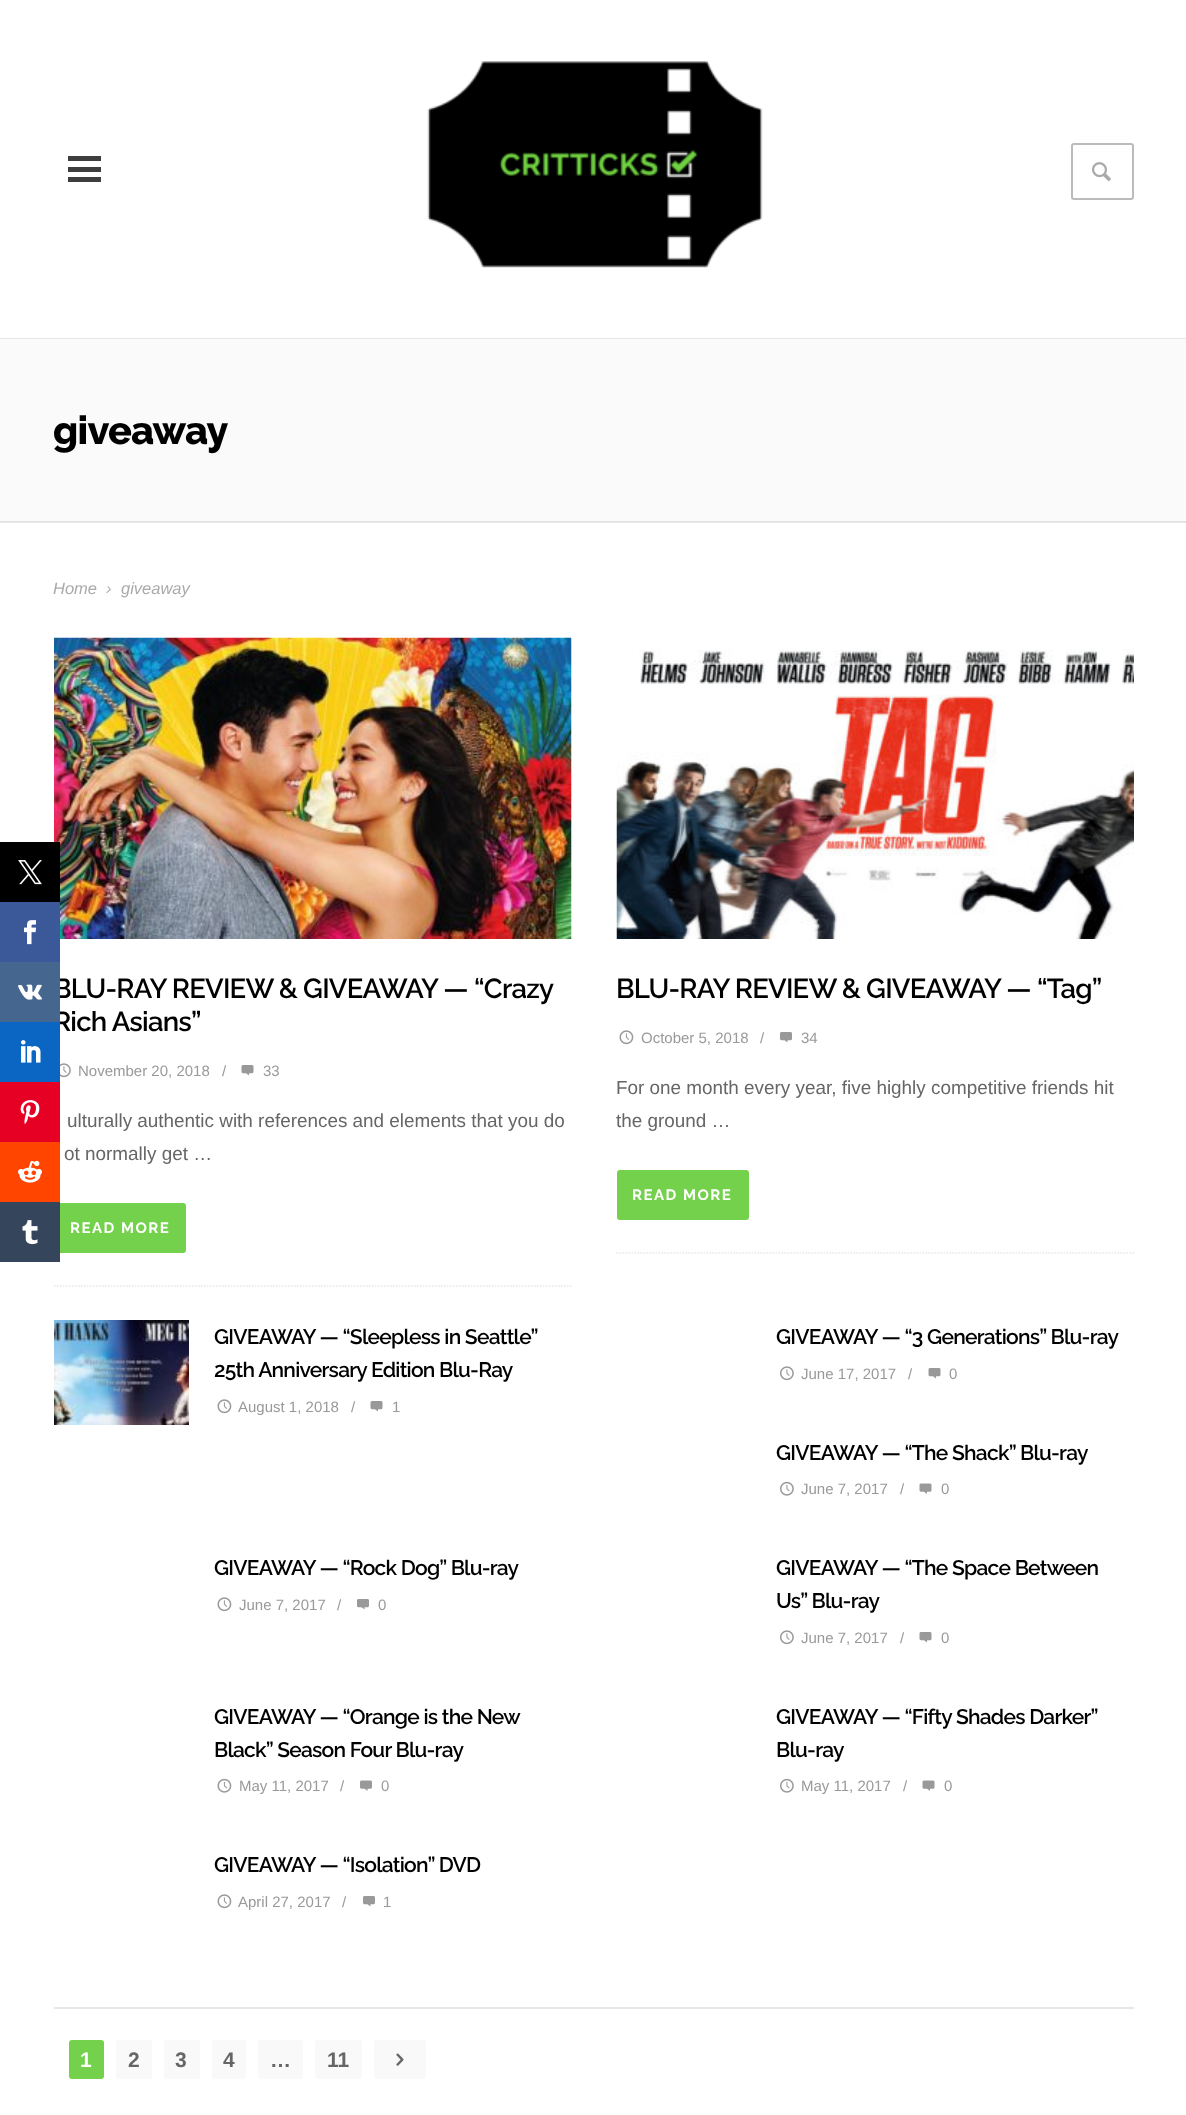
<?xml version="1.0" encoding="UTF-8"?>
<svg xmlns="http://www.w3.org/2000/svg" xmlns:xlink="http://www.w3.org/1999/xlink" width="1186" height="2115">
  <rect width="100%" height="100%" fill="#ffffff" />
  <rect y="522" width="1186" height="1" fill="#e6e6e6" />
  <image x="54" y="637" width="518" height="302" xlink:href="image10.png" />
  <rect y="842" width="60" height="60" fill="#000000" />
  <image x="18" y="860" width="24" height="25" xlink:href="image1.png" />
  <rect y="902" width="60" height="60" fill="#3b5998" />
  <image x="24" y="920" width="12" height="25" xlink:href="image2.png" />
  <rect y="1082" width="60" height="60" fill="#e60023" />
  <image x="20" y="1100" width="20" height="24" xlink:href="image5.png" />
  <rect y="1142" width="60" height="60" fill="#ff4500" />
  <image x="18" y="1160" width="24" height="23" xlink:href="image6.png" />
  <rect x="54" y="1203" width="132" height="50" rx="3" fill="#74d14c" />
  <rect y="1202" width="60" height="60" fill="#35465c" />
  <image x="22" y="1220" width="16" height="25" xlink:href="image7.png" />
  <rect y="338" width="1186" height="1" fill="#e6e6e6" />
  <rect x="68" y="156" width="33" height="5" fill="#3e3e3e" />
  <rect x="68" y="167" width="33" height="5" fill="#3e3e3e" />
  <rect x="68" y="177" width="33" height="5" fill="#3e3e3e" />
  <image x="427" y="61" width="336" height="207" xlink:href="image8.png" />
  <rect x="1072" y="144" width="61" height="55" rx="2" fill="none" stroke="#bbbbbb" stroke-width="2" />
  <image x="1092" y="162" width="19" height="19" xlink:href="image9.png" />
  <rect y="339" width="1186" height="182" fill="#fafafa" />
  <rect y="521" width="1186" height="1" fill="#e1e1e1" />
  <path d="M 54 1286 h 517.5" fill="none" stroke="#e6e6e6" stroke-width="1.5" stroke-dasharray="1.5 1.5" />
  <image x="60" y="1063" width="11" height="15" xlink:href="image11.png" />
  <image x="241" y="1065" width="13" height="11" xlink:href="image12.png" />
  <path d="M 616.5 1253 h 517.5" fill="none" stroke="#e6e6e6" stroke-width="1.5" stroke-dasharray="1.5 1.5" />
  <image x="616" y="649" width="518" height="290" xlink:href="image13.png" />
  <image x="619" y="1030" width="15" height="15" xlink:href="image14.png" />
  <image x="780" y="1032" width="12" height="11" xlink:href="image15.png" />
  <rect x="617" y="1170" width="132" height="50" rx="3" fill="#74d14c" />
  <image x="54" y="1320" width="135" height="105" xlink:href="image16.png" />
  <image x="217" y="1399" width="15" height="15" xlink:href="image14.png" />
  <image x="370" y="1401" width="13" height="11" xlink:href="image12.png" />
  <image x="780" y="1366" width="14" height="15" xlink:href="image17.png" />
  <image x="928" y="1368" width="13" height="11" xlink:href="image12.png" />
  <image x="780" y="1481" width="14" height="15" xlink:href="image18.png" />
  <image x="919" y="1483" width="13" height="11" xlink:href="image19.png" />
  <image x="217" y="1597" width="15" height="15" xlink:href="image14.png" />
  <image x="357" y="1599" width="12" height="11" xlink:href="image15.png" />
  <image x="780" y="1630" width="14" height="15" xlink:href="image17.png" />
  <image x="919" y="1632" width="13" height="11" xlink:href="image12.png" />
  <image x="217" y="1778" width="15" height="15" xlink:href="image20.png" />
  <image x="360" y="1780" width="12" height="11" xlink:href="image21.png" />
  <image x="780" y="1778" width="14" height="15" xlink:href="image18.png" />
  <image x="922" y="1780" width="13" height="11" xlink:href="image19.png" />
  <image x="217" y="1894" width="15" height="15" xlink:href="image14.png" />
  <image x="363" y="1896" width="12" height="11" xlink:href="image15.png" />
  <rect x="54" y="2007" width="1080" height="2" fill="#e6e6e6" />
  <rect x="69" y="2040" width="35" height="39" rx="3" fill="#74d14c" />
  <rect x="116" y="2040" width="36" height="39" rx="3" fill="#f9f9f9" />
  <rect x="164" y="2040" width="36" height="39" rx="3" fill="#f9f9f9" />
  <rect x="212" y="2040" width="34" height="39" rx="3" fill="#f9f9f9" />
  <rect x="258" y="2040" width="45" height="39" rx="3" fill="#f9f9f9" />
  <rect x="315" y="2040" width="47" height="39" rx="3" fill="#f9f9f9" />
  <rect x="374" y="2040" width="52" height="39" rx="3" fill="#f9f9f9" />
  <image x="396" y="2053" width="8" height="13" xlink:href="image22.png" />
  <text x="53" y="444" style="font-family: Raleway; font-size: 39.5px; font-weight: 800; letter-spacing: -0.75px; fill: #000000">giveaway</text>
  <text x="53" y="594" style="font-family: Liberation Sans; font-size: 16.5px; font-style: italic; fill: #aaaaaa">Home</text>
  <text x="106" y="594" style="font-family: Liberation Sans; font-size: 16.5px; font-style: italic; fill: #aaaaaa">›</text>
  <text x="121" y="594" style="font-family: Liberation Sans; font-size: 16.5px; font-style: italic; fill: #aaaaaa">giveaway</text>
  <text x="53" y="998" style="font-family: Raleway; font-size: 27.5px; font-weight: 600; letter-spacing: -0.75px; fill: #000000">BLU-RAY REVIEW &amp; GIVEAWAY — “Crazy</text>
  <text x="53" y="1031" style="font-family: Raleway; font-size: 27.5px; font-weight: 600; letter-spacing: -0.75px; fill: #000000">Rich Asians”</text>
  <rect y="1022" width="60" height="60" fill="#0a66c2" />
  <image x="21" y="1040" width="20" height="23" xlink:href="image4.png" />
  <rect y="962" width="60" height="60" fill="#45668e" />
  <image x="18" y="984" width="24" height="16" xlink:href="image3.png" />
  <text x="78" y="1076" style="font-family: Liberation Sans; font-size: 15px; fill: #999999">November 20, 2018</text>
  <text x="222" y="1076" style="font-family: Liberation Sans; font-size: 15px; fill: #999999">/</text>
  <text x="263" y="1076" style="font-family: Liberation Sans; font-size: 15px; fill: #999999">33</text>
  <text x="67" y="1127" style="font-family: Liberation Sans; font-size: 18.9px; fill: #666666">ulturally authentic with references and elements that you do</text>
  <text x="64" y="1160" style="font-family: Liberation Sans; font-size: 18.9px; fill: #666666">ot normally get …</text>
  <text x="70" y="1233" style="font-family: Raleway; font-size: 15px; font-weight: bold; letter-spacing: 1.5px; fill: #ffffff">READ MORE</text>
  <text x="616" y="998" style="font-family: Raleway; font-size: 27.5px; font-weight: 600; letter-spacing: -0.75px; fill: #000000">BLU-RAY REVIEW &amp; GIVEAWAY — “Tag”</text>
  <text x="641" y="1043" style="font-family: Liberation Sans; font-size: 15px; fill: #999999">October 5, 2018</text>
  <text x="760" y="1043" style="font-family: Liberation Sans; font-size: 15px; fill: #999999">/</text>
  <text x="801" y="1043" style="font-family: Liberation Sans; font-size: 15px; fill: #999999">34</text>
  <text x="616" y="1094" style="font-family: Liberation Sans; font-size: 18.9px; fill: #666666">For one month every year, five highly competitive friends hit</text>
  <text x="616" y="1127" style="font-family: Liberation Sans; font-size: 18.9px; fill: #666666">the ground …</text>
  <text x="632" y="1200" style="font-family: Raleway; font-size: 15px; font-weight: bold; letter-spacing: 1.5px; fill: #ffffff">READ MORE</text>
  <text x="214" y="1344" style="font-family: Raleway; font-size: 21px; font-weight: 600; letter-spacing: -0.75px; fill: #000000">GIVEAWAY — “Sleepless in Seattle”</text>
  <text x="214" y="1377" style="font-family: Raleway; font-size: 21px; font-weight: 600; letter-spacing: -0.75px; fill: #000000">25th Anniversary Edition Blu-Ray</text>
  <text x="238" y="1412" style="font-family: Liberation Sans; font-size: 15px; fill: #999999">August 1, 2018</text>
  <text x="351" y="1412" style="font-family: Liberation Sans; font-size: 15px; fill: #999999">/</text>
  <text x="392" y="1412" style="font-family: Liberation Sans; font-size: 15px; fill: #999999">1</text>
  <text x="776" y="1344" style="font-family: Raleway; font-size: 21px; font-weight: 600; letter-spacing: -0.75px; fill: #000000">GIVEAWAY — “3 Generations” Blu-ray</text>
  <text x="801" y="1379" style="font-family: Liberation Sans; font-size: 15px; fill: #999999">June 17, 2017</text>
  <text x="908" y="1379" style="font-family: Liberation Sans; font-size: 15px; fill: #999999">/</text>
  <text x="949" y="1379" style="font-family: Liberation Sans; font-size: 15px; fill: #999999">0</text>
  <text x="776" y="1460" style="font-family: Raleway; font-size: 21px; font-weight: 600; letter-spacing: -0.75px; fill: #000000">GIVEAWAY — “The Shack” Blu-ray</text>
  <text x="801" y="1494" style="font-family: Liberation Sans; font-size: 15px; fill: #999999">June 7, 2017</text>
  <text x="900" y="1494" style="font-family: Liberation Sans; font-size: 15px; fill: #999999">/</text>
  <text x="941" y="1494" style="font-family: Liberation Sans; font-size: 15px; fill: #999999">0</text>
  <text x="214" y="1575" style="font-family: Raleway; font-size: 21px; font-weight: 600; letter-spacing: -0.75px; fill: #000000">GIVEAWAY — “Rock Dog” Blu-ray</text>
  <text x="239" y="1610" style="font-family: Liberation Sans; font-size: 15px; fill: #999999">June 7, 2017</text>
  <text x="337" y="1610" style="font-family: Liberation Sans; font-size: 15px; fill: #999999">/</text>
  <text x="378" y="1610" style="font-family: Liberation Sans; font-size: 15px; fill: #999999">0</text>
  <text x="776" y="1575" style="font-family: Raleway; font-size: 21px; font-weight: 600; letter-spacing: -0.75px; fill: #000000">GIVEAWAY — “The Space Between</text>
  <text x="776" y="1608" style="font-family: Raleway; font-size: 21px; font-weight: 600; letter-spacing: -0.75px; fill: #000000">Us” Blu-ray</text>
  <text x="801" y="1643" style="font-family: Liberation Sans; font-size: 15px; fill: #999999">June 7, 2017</text>
  <text x="900" y="1643" style="font-family: Liberation Sans; font-size: 15px; fill: #999999">/</text>
  <text x="941" y="1643" style="font-family: Liberation Sans; font-size: 15px; fill: #999999">0</text>
  <text x="214" y="1724" style="font-family: Raleway; font-size: 21px; font-weight: 600; letter-spacing: -0.75px; fill: #000000">GIVEAWAY — “Orange is the New</text>
  <text x="214" y="1757" style="font-family: Raleway; font-size: 21px; font-weight: 600; letter-spacing: -0.75px; fill: #000000">Black” Season Four Blu-ray</text>
  <text x="239" y="1791" style="font-family: Liberation Sans; font-size: 15px; fill: #999999">May 11, 2017</text>
  <text x="340" y="1791" style="font-family: Liberation Sans; font-size: 15px; fill: #999999">/</text>
  <text x="381" y="1791" style="font-family: Liberation Sans; font-size: 15px; fill: #999999">0</text>
  <text x="776" y="1724" style="font-family: Raleway; font-size: 21px; font-weight: 600; letter-spacing: -0.75px; fill: #000000">GIVEAWAY — “Fifty Shades Darker”</text>
  <text x="776" y="1757" style="font-family: Raleway; font-size: 21px; font-weight: 600; letter-spacing: -0.75px; fill: #000000">Blu-ray</text>
  <text x="801" y="1791" style="font-family: Liberation Sans; font-size: 15px; fill: #999999">May 11, 2017</text>
  <text x="903" y="1791" style="font-family: Liberation Sans; font-size: 15px; fill: #999999">/</text>
  <text x="944" y="1791" style="font-family: Liberation Sans; font-size: 15px; fill: #999999">0</text>
  <text x="214" y="1872" style="font-family: Raleway; font-size: 21px; font-weight: 600; letter-spacing: -0.75px; fill: #000000">GIVEAWAY — “Isolation” DVD</text>
  <text x="238" y="1907" style="font-family: Liberation Sans; font-size: 15px; fill: #999999">April 27, 2017</text>
  <text x="342" y="1907" style="font-family: Liberation Sans; font-size: 15px; fill: #999999">/</text>
  <text x="383" y="1907" style="font-family: Liberation Sans; font-size: 15px; fill: #999999">1</text>
  <text x="80" y="2067" style="font-family: Liberation Sans; font-size: 21px; font-weight: bold; fill: #ffffff">1</text>
  <text x="128" y="2067" style="font-family: Liberation Sans; font-size: 21px; font-weight: bold; fill: #666666">2</text>
  <text x="175" y="2067" style="font-family: Liberation Sans; font-size: 21px; font-weight: bold; fill: #666666">3</text>
  <text x="223" y="2067" style="font-family: Liberation Sans; font-size: 21px; font-weight: bold; fill: #666666">4</text>
  <text x="270" y="2067" style="font-family: Liberation Sans; font-size: 21px; font-weight: bold; fill: #666666">…</text>
  <text x="327" y="2067" style="font-family: Liberation Sans; font-size: 21px; font-weight: bold; fill: #666666">11</text>
</svg>
